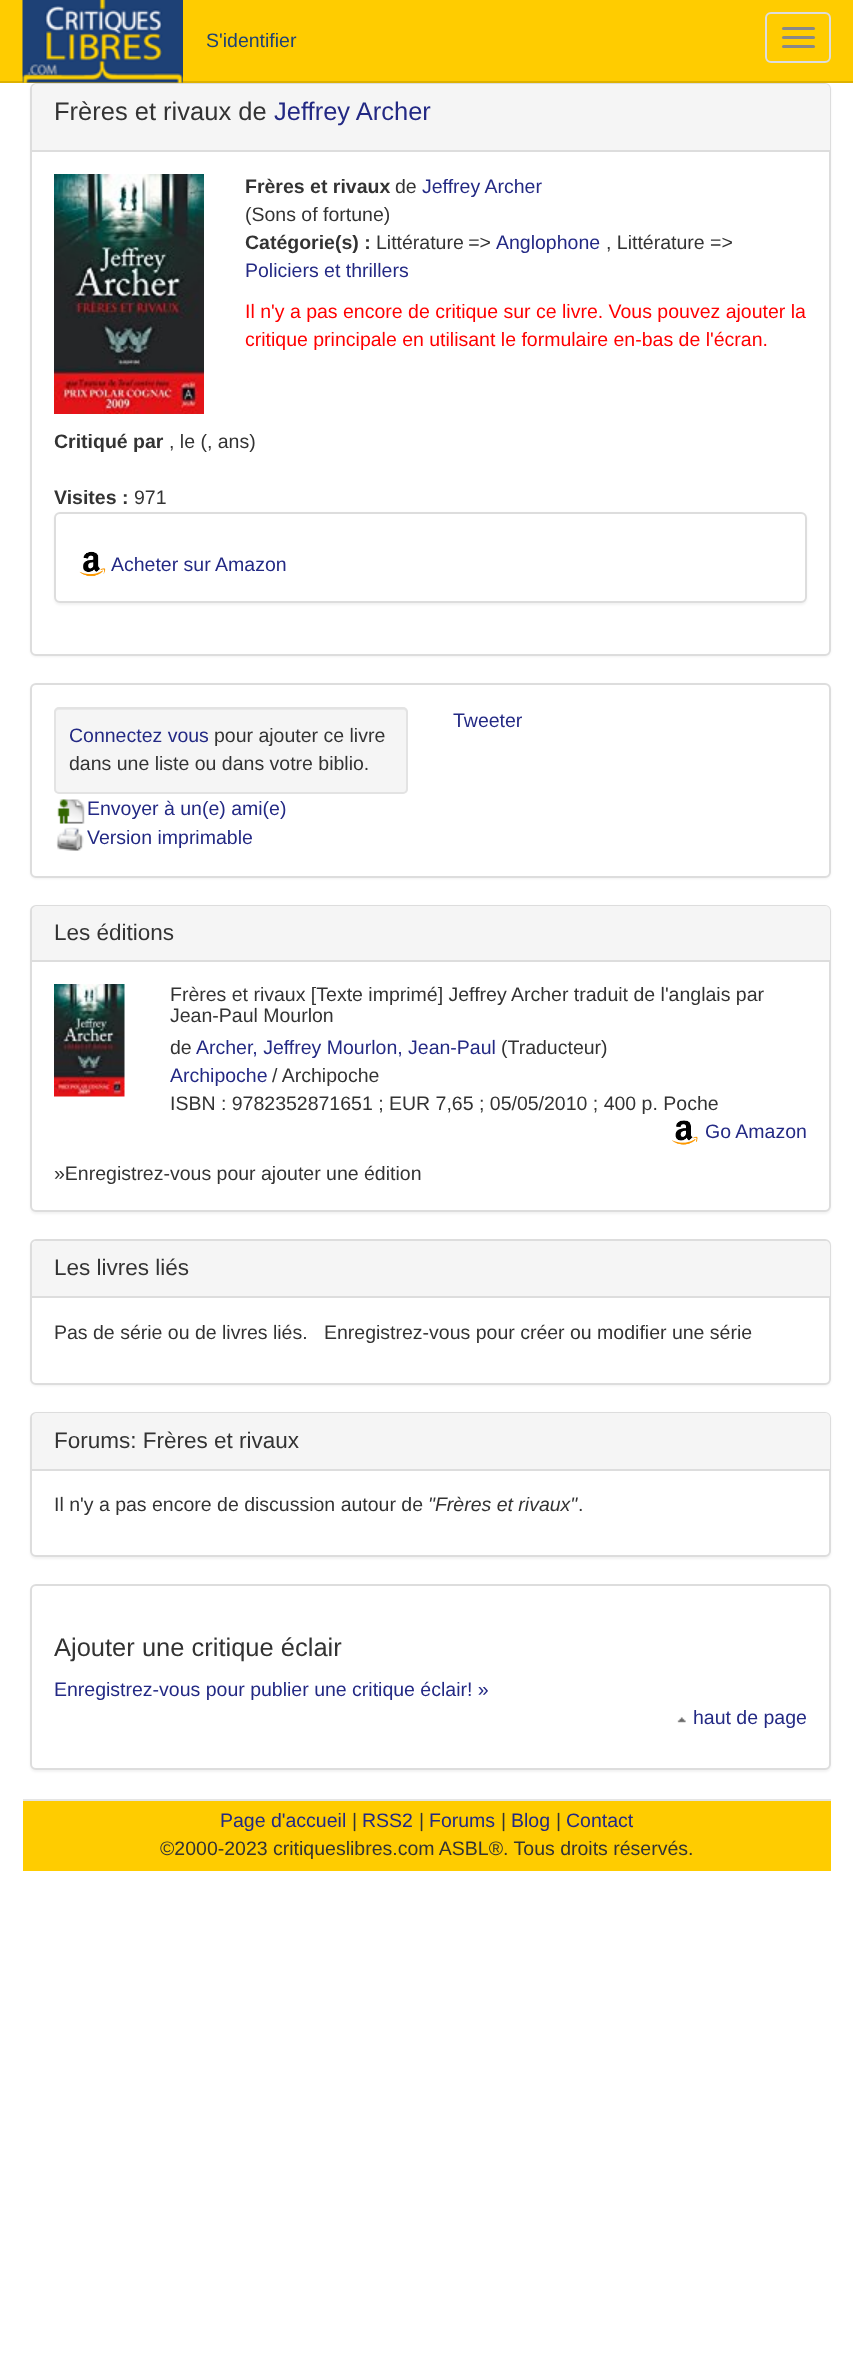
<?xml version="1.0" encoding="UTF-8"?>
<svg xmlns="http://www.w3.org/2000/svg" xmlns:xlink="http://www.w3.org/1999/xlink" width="853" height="2357">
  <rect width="100%" height="100%" fill="#ffffff" />
  <rect x="30" y="84" width="801" height="573" rx="6" fill="#000000" fill-opacity="0.05" filter="blur(1px)" />
  <rect width="853" height="81" fill="#ffcc00" />
  <rect y="81" width="853" height="2" fill="#deb100" />
  <image x="22" y="0" width="161" height="83" xlink:href="image1.png" />
  <rect x="766" y="13" width="64" height="49" rx="5" fill="none" stroke="#dddddd" stroke-width="2" />
  <rect x="782" y="27" width="33" height="3" rx="1.5" fill="#888888" />
  <rect x="782" y="36" width="33" height="3" rx="1.5" fill="#888888" />
  <rect x="782" y="45" width="33" height="3" rx="1.5" fill="#888888" />
  <rect x="31" y="84" width="799" height="571" rx="5" fill="#ffffff" stroke="#dddddd" stroke-width="2" />
  <path d="M 37 84 h 788 c 3 0 5 2 5 5 v 63 h -798 v -63 c 0 -3 2 -5 5 -5 z" fill="#f5f5f5" />
  <rect x="32" y="150" width="798" height="2" fill="#dddddd" />
  <image x="54" y="174" width="150" height="240" xlink:href="image2.png" />
  <rect x="54" y="513" width="753" height="92" rx="6" fill="#000000" fill-opacity="0.05" filter="blur(1px)" />
  <rect x="55" y="513" width="751" height="89" rx="5" fill="#ffffff" stroke="#dddddd" stroke-width="2" />
  <image x="79" y="551" width="27" height="26" xlink:href="image3.png" />
  <rect x="30" y="684" width="801" height="195" rx="6" fill="#000000" fill-opacity="0.05" filter="blur(1px)" />
  <rect x="31" y="684" width="799" height="193" rx="5" fill="#ffffff" stroke="#dddddd" stroke-width="2" />
  <rect x="54" y="707" width="354" height="87" rx="5" fill="#f5f5f5" />
  <path d="M 58 710 h 346 c 1 0 2 1 2 2 v 79 c 1 0 1 -1 1 -2 v -78 c 0 -2 -1 -3 -3 -3 h -345 c -2 0 -3 1 -3 3 v 1 c 0 -1 1 -2 2 -2 z" fill="#e9e9e9" />
  <rect x="55" y="708" width="352" height="85" rx="4" fill="none" stroke="#e3e3e3" stroke-width="2" />
  <image x="57" y="799" width="28" height="25" xlink:href="image4.png" />
  <image x="56" y="827" width="28" height="24" xlink:href="image5.png" />
  <rect x="30" y="906" width="801" height="308" rx="6" fill="#000000" fill-opacity="0.05" filter="blur(1px)" />
  <rect x="31" y="906" width="799" height="305" rx="5" fill="#ffffff" stroke="#dddddd" stroke-width="2" />
  <path d="M 37 906 h 788 c 3 0 5 2 5 5 v 51 h -798 v -51 c 0 -3 2 -5 5 -5 z" fill="#f5f5f5" />
  <rect x="32" y="960" width="798" height="2" fill="#dddddd" />
  <image x="54" y="984" width="71" height="113" xlink:href="image6.png" />
  <image x="672" y="1120" width="26" height="25" xlink:href="image7.png" />
  <rect x="30" y="1241" width="801" height="145" rx="6" fill="#000000" fill-opacity="0.05" filter="blur(1px)" />
  <rect x="31" y="1240" width="799" height="144" rx="5" fill="#ffffff" stroke="#dddddd" stroke-width="2" />
  <path d="M 37 1241 h 788 c 3 0 5 2 5 5 v 52 h -798 v -52 c 0 -3 2 -5 5 -5 z" fill="#f5f5f5" />
  <rect x="32" y="1296" width="798" height="2" fill="#dddddd" />
  <rect x="30" y="1413" width="801" height="146" rx="6" fill="#000000" fill-opacity="0.05" filter="blur(1px)" />
  <rect x="31" y="1413" width="799" height="143" rx="5" fill="#ffffff" stroke="#dddddd" stroke-width="2" />
  <path d="M 37 1413 h 788 c 3 0 5 2 5 5 v 52 h -798 v -52 c 0 -3 2 -5 5 -5 z" fill="#f5f5f5" />
  <rect x="32" y="1469" width="798" height="2" fill="#dddddd" />
  <rect x="30" y="1586" width="801" height="186" rx="6" fill="#000000" fill-opacity="0.05" filter="blur(1px)" />
  <rect x="31" y="1585" width="799" height="184" rx="5" fill="#ffffff" stroke="#dddddd" stroke-width="2" />
  <image x="677" y="1717" width="9" height="6" xlink:href="image8.png" />
  <rect x="23" y="1801" width="808" height="70" fill="#ffcc00" />
  <rect x="23" y="1799" width="808" height="2" fill="#e5e5e5" />
  <text x="206" y="47" style="font-family: Liberation Sans; font-size: 19.5px; fill: #1e4176">S'identifier</text>
  <text x="54" y="120" style="font-family: Liberation Sans; font-size: 25.5px; fill: #333333">Frères et rivaux de</text>
  <text x="274" y="120" style="font-family: Liberation Sans; font-size: 25.5px; fill: #232984">Jeffrey Archer</text>
  <text x="245" y="193" style="font-family: Liberation Sans; font-size: 19.5px; font-weight: bold; fill: #333333">Frères et rivaux</text>
  <text x="395" y="193" style="font-family: Liberation Sans; font-size: 19.5px; fill: #333333">de</text>
  <text x="422" y="193" style="font-family: Liberation Sans; font-size: 19.5px; fill: #232984">Jeffrey Archer</text>
  <text x="245" y="221" style="font-family: Liberation Sans; font-size: 19.5px; fill: #333333">(Sons of fortune)</text>
  <text x="245" y="249" style="font-family: Liberation Sans; font-size: 19.5px; font-weight: bold; fill: #333333">Catégorie(s) :</text>
  <text x="376" y="249" word-spacing="-1" style="font-family: Liberation Sans; font-size: 19.5px; fill: #333333">Littérature =&gt;</text>
  <text x="496" y="249" style="font-family: Liberation Sans; font-size: 19.5px; fill: #232984">Anglophone</text>
  <text x="606" y="249" style="font-family: Liberation Sans; font-size: 19.5px; fill: #333333">, Littérature =&gt;</text>
  <text x="245" y="277" style="font-family: Liberation Sans; font-size: 19.5px; fill: #232984">Policiers et thrillers</text>
  <text x="245" y="318" style="font-family: Liberation Sans; font-size: 19.5px; fill: #ff0000">Il n'y a pas encore de critique sur ce livre. Vous pouvez ajouter la</text>
  <text x="245" y="346" style="font-family: Liberation Sans; font-size: 19.5px; fill: #ff0000">critique principale en utilisant le formulaire en-bas de l'écran.</text>
  <text x="54" y="448" style="font-family: Liberation Sans; font-size: 19.5px; font-weight: bold; fill: #333333">Critiqué par</text>
  <text x="169" y="448" style="font-family: Liberation Sans; font-size: 19.5px; fill: #333333">, le (, ans)</text>
  <text x="54" y="504" style="font-family: Liberation Sans; font-size: 19.5px; font-weight: bold; fill: #333333">Visites :</text>
  <text x="134" y="504" style="font-family: Liberation Sans; font-size: 19.5px; fill: #333333">971</text>
  <text x="111" y="571" style="font-family: Liberation Sans; font-size: 19.5px; fill: #232984">Acheter sur Amazon</text>
  <text x="453" y="727" style="font-family: Liberation Sans; font-size: 19.5px; fill: #232984">Tweeter</text>
  <text x="69" y="742" style="font-family: Liberation Sans; font-size: 19.5px; fill: #232984">Connectez vous</text>
  <text x="214" y="742" style="font-family: Liberation Sans; font-size: 19.5px; fill: #333333">pour ajouter ce livre</text>
  <text x="69" y="770" style="font-family: Liberation Sans; font-size: 19.5px; fill: #333333">dans une liste ou dans votre biblio.</text>
  <text x="87" y="815" style="font-family: Liberation Sans; font-size: 19.5px; fill: #232984">Envoyer à un(e) ami(e)</text>
  <text x="87" y="844" style="font-family: Liberation Sans; font-size: 19.5px; fill: #232984">Version imprimable</text>
  <text x="54" y="940" style="font-family: Liberation Sans; font-size: 22.5px; fill: #333333">Les éditions</text>
  <text x="170" y="1001" style="font-family: Liberation Sans; font-size: 19.5px; fill: #333333">Frères et rivaux [Texte imprimé] Jeffrey Archer traduit de l'anglais par</text>
  <text x="170" y="1022" style="font-family: Liberation Sans; font-size: 19.5px; fill: #333333">Jean-Paul Mourlon</text>
  <text x="170" y="1054" style="font-family: Liberation Sans; font-size: 19.5px; fill: #333333">de</text>
  <text x="196" y="1054" style="font-family: Liberation Sans; font-size: 19.5px; fill: #232984">Archer, Jeffrey Mourlon, Jean-Paul</text>
  <text x="501" y="1054" style="font-family: Liberation Sans; font-size: 19.5px; fill: #333333">(Traducteur)</text>
  <text x="170" y="1082" style="font-family: Liberation Sans; font-size: 19.5px; fill: #232984">Archipoche</text>
  <text x="272" y="1082" style="font-family: Liberation Sans; font-size: 19.5px; fill: #333333">/ Archipoche</text>
  <text x="170" y="1110" style="font-family: Liberation Sans; font-size: 19.5px; fill: #333333">ISBN : 9782352871651 ; EUR 7,65 ; 05/05/2010 ; 400 p. Poche</text>
  <text x="705" y="1138" style="font-family: Liberation Sans; font-size: 19.5px; fill: #232984">Go Amazon</text>
  <text x="54" y="1180" style="font-family: Liberation Sans; font-size: 19.5px; fill: #333333">»Enregistrez-vous pour ajouter une édition</text>
  <text x="54" y="1275" style="font-family: Liberation Sans; font-size: 22.5px; fill: #333333">Les livres liés</text>
  <text x="54" y="1339" style="font-family: Liberation Sans; font-size: 19.5px; fill: #333333">Pas de série ou de livres liés.</text>
  <text x="324" y="1339" style="font-family: Liberation Sans; font-size: 19.5px; fill: #333333">Enregistrez-vous pour créer ou modifier une série</text>
  <text x="54" y="1448" style="font-family: Liberation Sans; font-size: 22.5px; fill: #333333">Forums: Frères et rivaux</text>
  <text x="54" y="1511" style="font-family: Liberation Sans; font-size: 19.5px; fill: #333333">Il n'y a pas encore de discussion autour de</text>
  <text x="428" y="1511" style="font-family: Liberation Sans; font-size: 19.5px; font-style: italic; fill: #333333">"Frères et rivaux"</text>
  <text x="578" y="1511" style="font-family: Liberation Sans; font-size: 19.5px; fill: #333333">.</text>
  <text x="54" y="1656" style="font-family: Liberation Sans; font-size: 25.5px; fill: #333333">Ajouter une critique éclair</text>
  <text x="54" y="1696" style="font-family: Liberation Sans; font-size: 19.5px; fill: #232984">Enregistrez-vous pour publier une critique éclair! »</text>
  <text x="693" y="1724" style="font-family: Liberation Sans; font-size: 19.5px; fill: #232984">haut de page</text>
  <text x="220" y="1827" style="font-family: Liberation Sans; font-size: 19.5px; fill: #232984">Page d'accueil</text>
  <text x="352" y="1827" style="font-family: Liberation Sans; font-size: 19.5px; fill: #333333">|</text>
  <text x="362" y="1827" style="font-family: Liberation Sans; font-size: 19.5px; fill: #232984">RSS2</text>
  <text x="419" y="1827" style="font-family: Liberation Sans; font-size: 19.5px; fill: #333333">|</text>
  <text x="429" y="1827" style="font-family: Liberation Sans; font-size: 19.5px; fill: #232984">Forums</text>
  <text x="501" y="1827" style="font-family: Liberation Sans; font-size: 19.5px; fill: #333333">|</text>
  <text x="511" y="1827" style="font-family: Liberation Sans; font-size: 19.5px; fill: #232984">Blog</text>
  <text x="556" y="1827" style="font-family: Liberation Sans; font-size: 19.5px; fill: #333333">|</text>
  <text x="566" y="1827" style="font-family: Liberation Sans; font-size: 19.5px; fill: #232984">Contact</text>
  <text x="160" y="1855" style="font-family: Liberation Sans; font-size: 19.5px; fill: #333333">©2000-2023 critiqueslibres.com ASBL®. Tous droits réservés.</text>
</svg>
